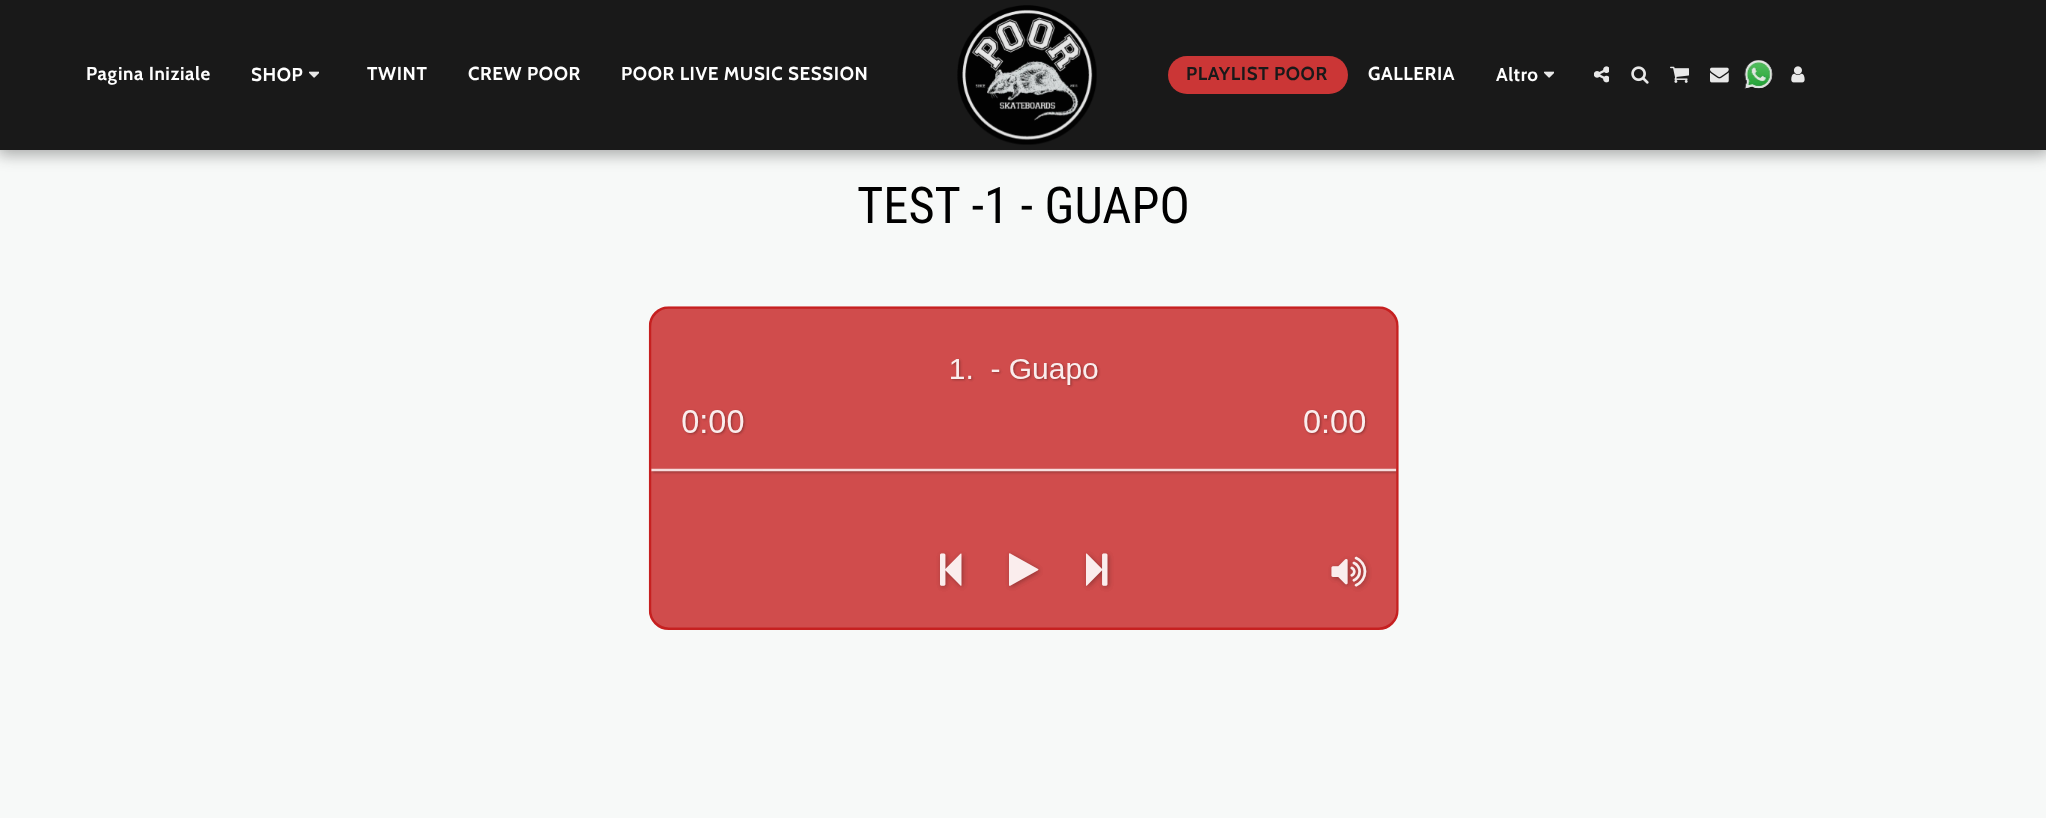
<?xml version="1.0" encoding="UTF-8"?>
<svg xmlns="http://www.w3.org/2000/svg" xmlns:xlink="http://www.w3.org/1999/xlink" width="2046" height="818">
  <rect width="100%" height="100%" fill="#f7f9f8" />
  <rect x="-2" width="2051" height="155" fill="#191919" fill-opacity="0.35" filter="blur(7.5px)" />
  <rect width="2046" height="150" fill="#191919" />
  <image x="309" y="71" width="10" height="7" xlink:href="image1.png" />
  <image x="957" y="5" width="140" height="140" xlink:href="image2.png" />
  <rect x="1168" y="56" width="180" height="38" rx="19" fill="#cb3636" />
  <image x="1544" y="71" width="10" height="7" xlink:href="image1.png" />
  <image x="1594" y="66" width="15" height="17" xlink:href="image3.png" />
  <image x="1631" y="66" width="18" height="18" xlink:href="image4.png" />
  <image x="1670" y="66" width="19" height="17" xlink:href="image5.png" />
  <image x="1710" y="67" width="19" height="16" xlink:href="image6.png" />
  <image x="1744" y="60" width="29" height="29" xlink:href="image7.png" />
  <image x="1791" y="66" width="14" height="17" xlink:href="image8.png" />
  <image x="648" y="306" width="751" height="324" xlink:href="image9.png" />
  <text x="86" y="80" style="font-family: Cabin; font-size: 18.75px; font-weight: bold; letter-spacing: 0.6px; fill: #fefefe">Pagina Iniziale</text>
  <text x="251" y="81" style="font-family: Cabin; font-size: 18.75px; font-weight: bold; letter-spacing: 0.6px; fill: #fefefe">SHOP</text>
  <text x="367" y="80" style="font-family: Cabin; font-size: 18.75px; font-weight: bold; letter-spacing: 0.6px; fill: #fefefe">TWINT</text>
  <text x="468" y="80" style="font-family: Cabin; font-size: 18.75px; font-weight: bold; letter-spacing: 0.6px; fill: #fefefe">CREW POOR</text>
  <text x="621" y="80" style="font-family: Cabin; font-size: 18.75px; font-weight: bold; letter-spacing: 0.6px; fill: #fefefe">POOR LIVE MUSIC SESSION</text>
  <text x="1186" y="80" style="font-family: Cabin; font-size: 18.75px; font-weight: bold; letter-spacing: 0.6px; fill: #191919">PLAYLIST POOR</text>
  <text x="1368" y="80" style="font-family: Cabin; font-size: 18.75px; font-weight: bold; letter-spacing: 0.6px; fill: #fefefe">GALLERIA</text>
  <text x="1496" y="81" style="font-family: Cabin; font-size: 18.75px; font-weight: bold; letter-spacing: 0.6px; fill: #fefefe">Altro</text>
  <text x="857" y="223" style="font-family: Roboto Condensed; font-size: 50.5px; fill: #000000">TEST -1 - GUAPO</text>
</svg>
